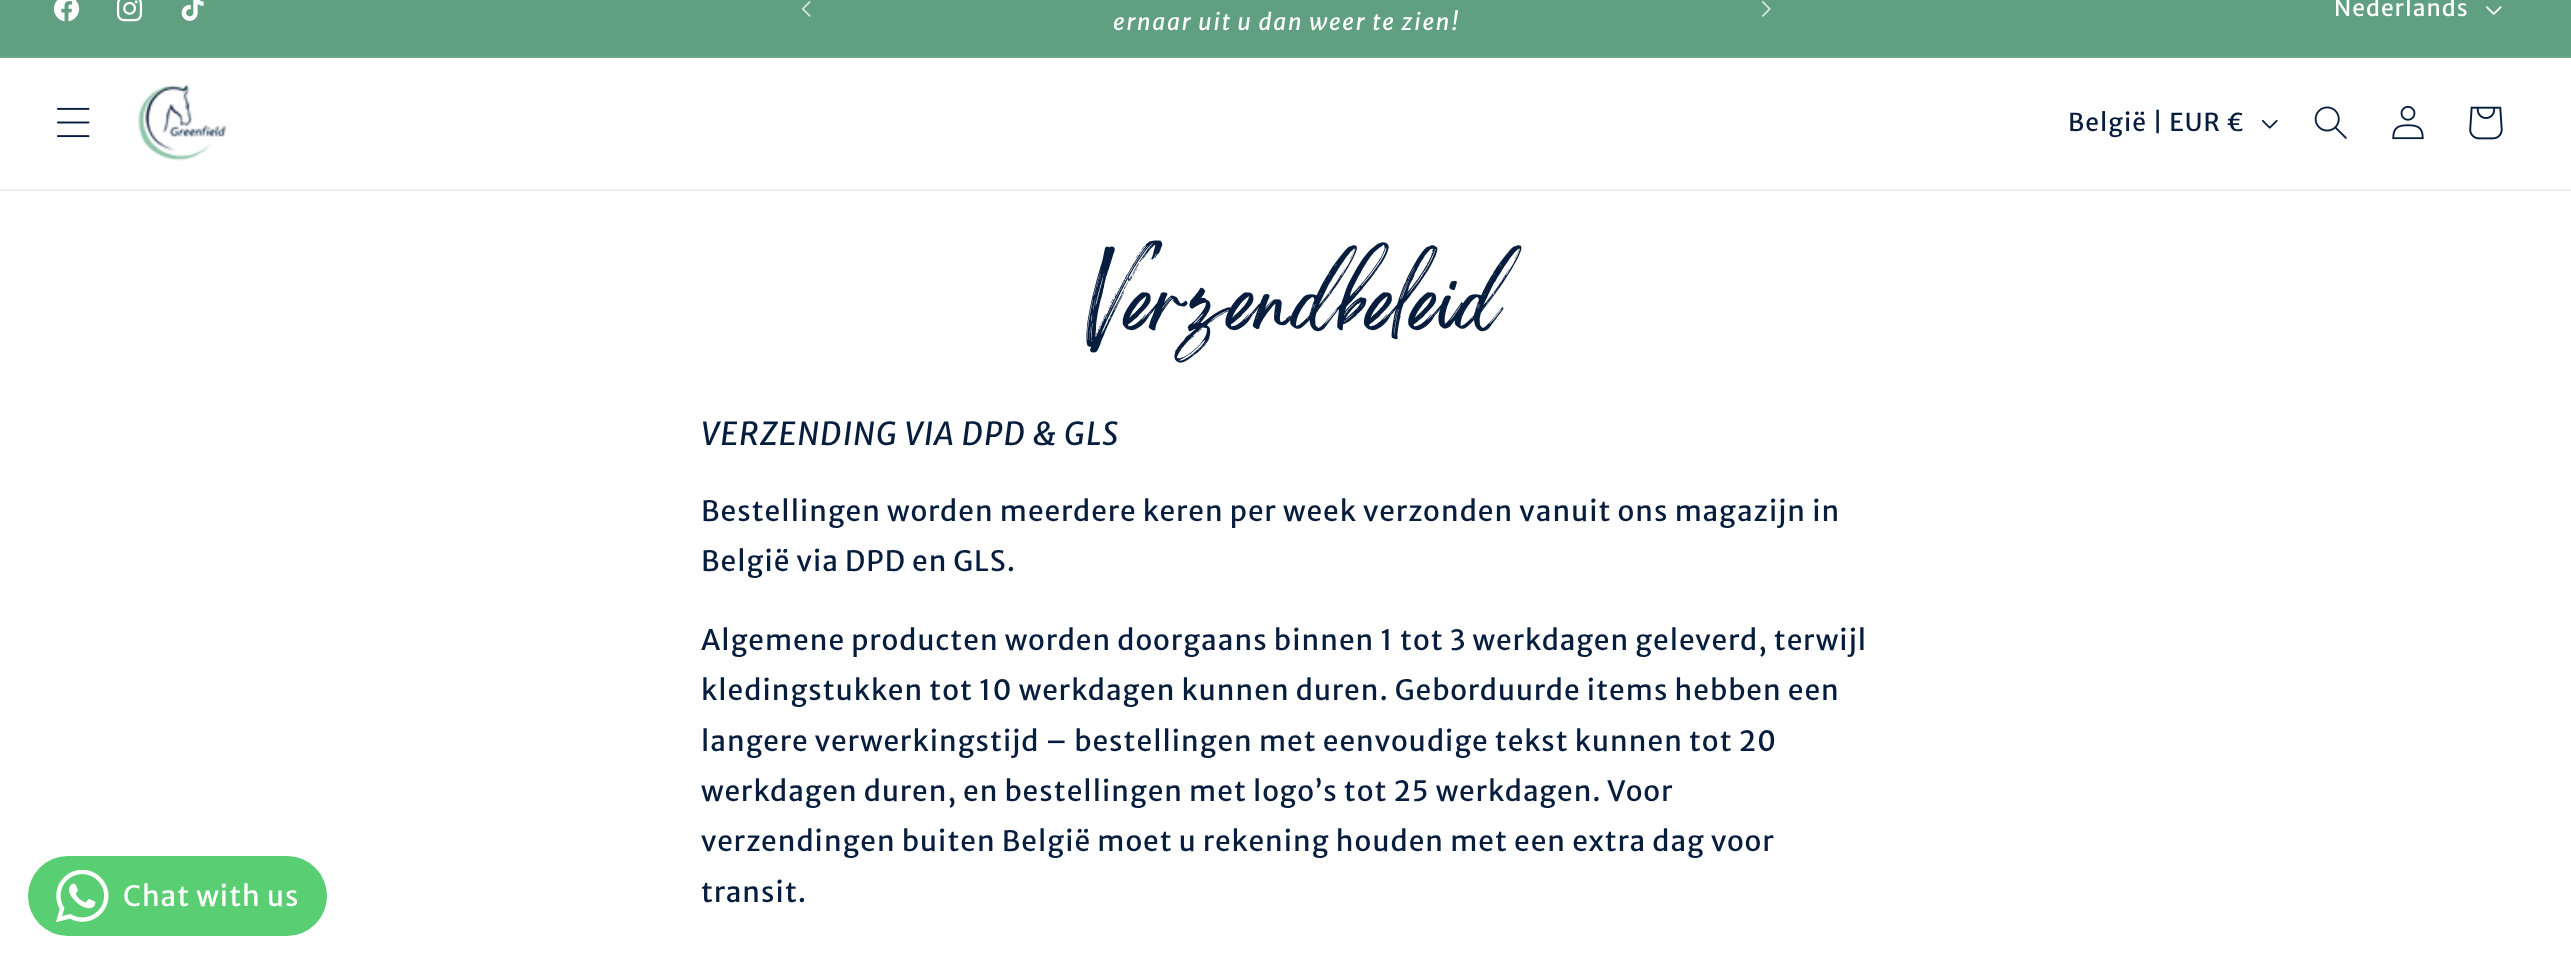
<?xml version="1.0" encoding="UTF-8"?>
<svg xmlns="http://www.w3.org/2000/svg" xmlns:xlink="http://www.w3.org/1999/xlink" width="2571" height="964">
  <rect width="100%" height="100%" fill="#ffffff" />
  <rect width="2571" height="56" fill="#609f7f" />
  <rect y="56" width="2571" height="2" fill="#6da789" />
  <image x="53" y="0" width="27" height="22" xlink:href="image1.png" />
  <image x="116" y="0" width="27" height="22" xlink:href="image2.png" />
  <image x="181" y="0" width="23" height="21" xlink:href="image3.png" />
  <image x="801" y="1" width="10" height="16" xlink:href="image4.png" />
  <image x="1762" y="1" width="9" height="16" xlink:href="image5.png" />
  <image x="2486" y="6" width="16" height="9" xlink:href="image6.png" />
  <rect y="189" width="2571" height="2" fill="#ebedf0" />
  <image x="57" y="107" width="33" height="31" xlink:href="image7.png" />
  <image x="137" y="84" width="90" height="77" xlink:href="image8.png" />
  <image x="2261" y="119" width="17" height="10" xlink:href="image9.png" />
  <image x="2314" y="106" width="33" height="33" xlink:href="image10.png" />
  <image x="2392" y="105" width="32" height="35" xlink:href="image11.png" />
  <image x="2469" y="106" width="34" height="34" xlink:href="image12.png" />
  <rect x="28" y="856" width="299" height="80" rx="40" fill="#59ce72" />
  <image x="56" y="870" width="53" height="52" xlink:href="image13.png" />
  <text x="1113" y="30" style="font-family: Merriweather Sans; font-size: 22.75px; font-style: italic; letter-spacing: 1.75px; fill: #ffffff">ernaar uit u dan weer te zien!</text>
  <text x="2334" y="16" style="font-family: Merriweather Sans; font-size: 22.75px; letter-spacing: 1.05px; fill: #ffffff">Nederlands</text>
  <text x="2068" y="131" style="font-family: Merriweather Sans; font-size: 24.5px; letter-spacing: 1.05px; fill: #071d3e">België | EUR €</text>
  <text x="123" y="906" style="font-family: Merriweather Sans; font-size: 28px; letter-spacing: 1.05px; fill: #ffffff">Chat with us</text>
  <text x="1079" y="342" style="font-family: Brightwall; font-size: 70px; font-style: italic; letter-spacing: 1.05px; fill: #071d3e">Verzendbeleid</text>
  <text x="701" y="445" style="font-family: Merriweather Sans; font-size: 31.5px; font-style: italic; letter-spacing: 1.05px; fill: #071d3e">VERZENDING VIA DPD &amp; GLS</text>
  <text x="701" y="521" style="font-family: Merriweather Sans; font-size: 28px; letter-spacing: 1.05px; fill: #071d3e">Bestellingen worden meerdere keren per week verzonden vanuit ons magazijn in</text>
  <text x="701" y="571" style="font-family: Merriweather Sans; font-size: 28px; letter-spacing: 1.05px; fill: #071d3e">België via DPD en GLS.</text>
  <text x="701" y="650" style="font-family: Merriweather Sans; font-size: 28px; letter-spacing: 1.05px; fill: #071d3e">Algemene producten worden doorgaans binnen 1 tot 3 werkdagen geleverd, terwijl</text>
  <text x="701" y="700" style="font-family: Merriweather Sans; font-size: 28px; letter-spacing: 1.05px; fill: #071d3e">kledingstukken tot 10 werkdagen kunnen duren. Geborduurde items hebben een</text>
  <text x="701" y="751" style="font-family: Merriweather Sans; font-size: 28px; letter-spacing: 1.05px; fill: #071d3e">langere verwerkingstijd – bestellingen met eenvoudige tekst kunnen tot 20</text>
  <text x="701" y="801" style="font-family: Merriweather Sans; font-size: 28px; letter-spacing: 1.05px; fill: #071d3e">werkdagen duren, en bestellingen met logo’s tot 25 werkdagen. Voor</text>
  <text x="701" y="851" style="font-family: Merriweather Sans; font-size: 28px; letter-spacing: 1.05px; fill: #071d3e">verzendingen buiten België moet u rekening houden met een extra dag voor</text>
  <text x="701" y="902" style="font-family: Merriweather Sans; font-size: 28px; letter-spacing: 1.05px; fill: #071d3e">transit.</text>
</svg>
